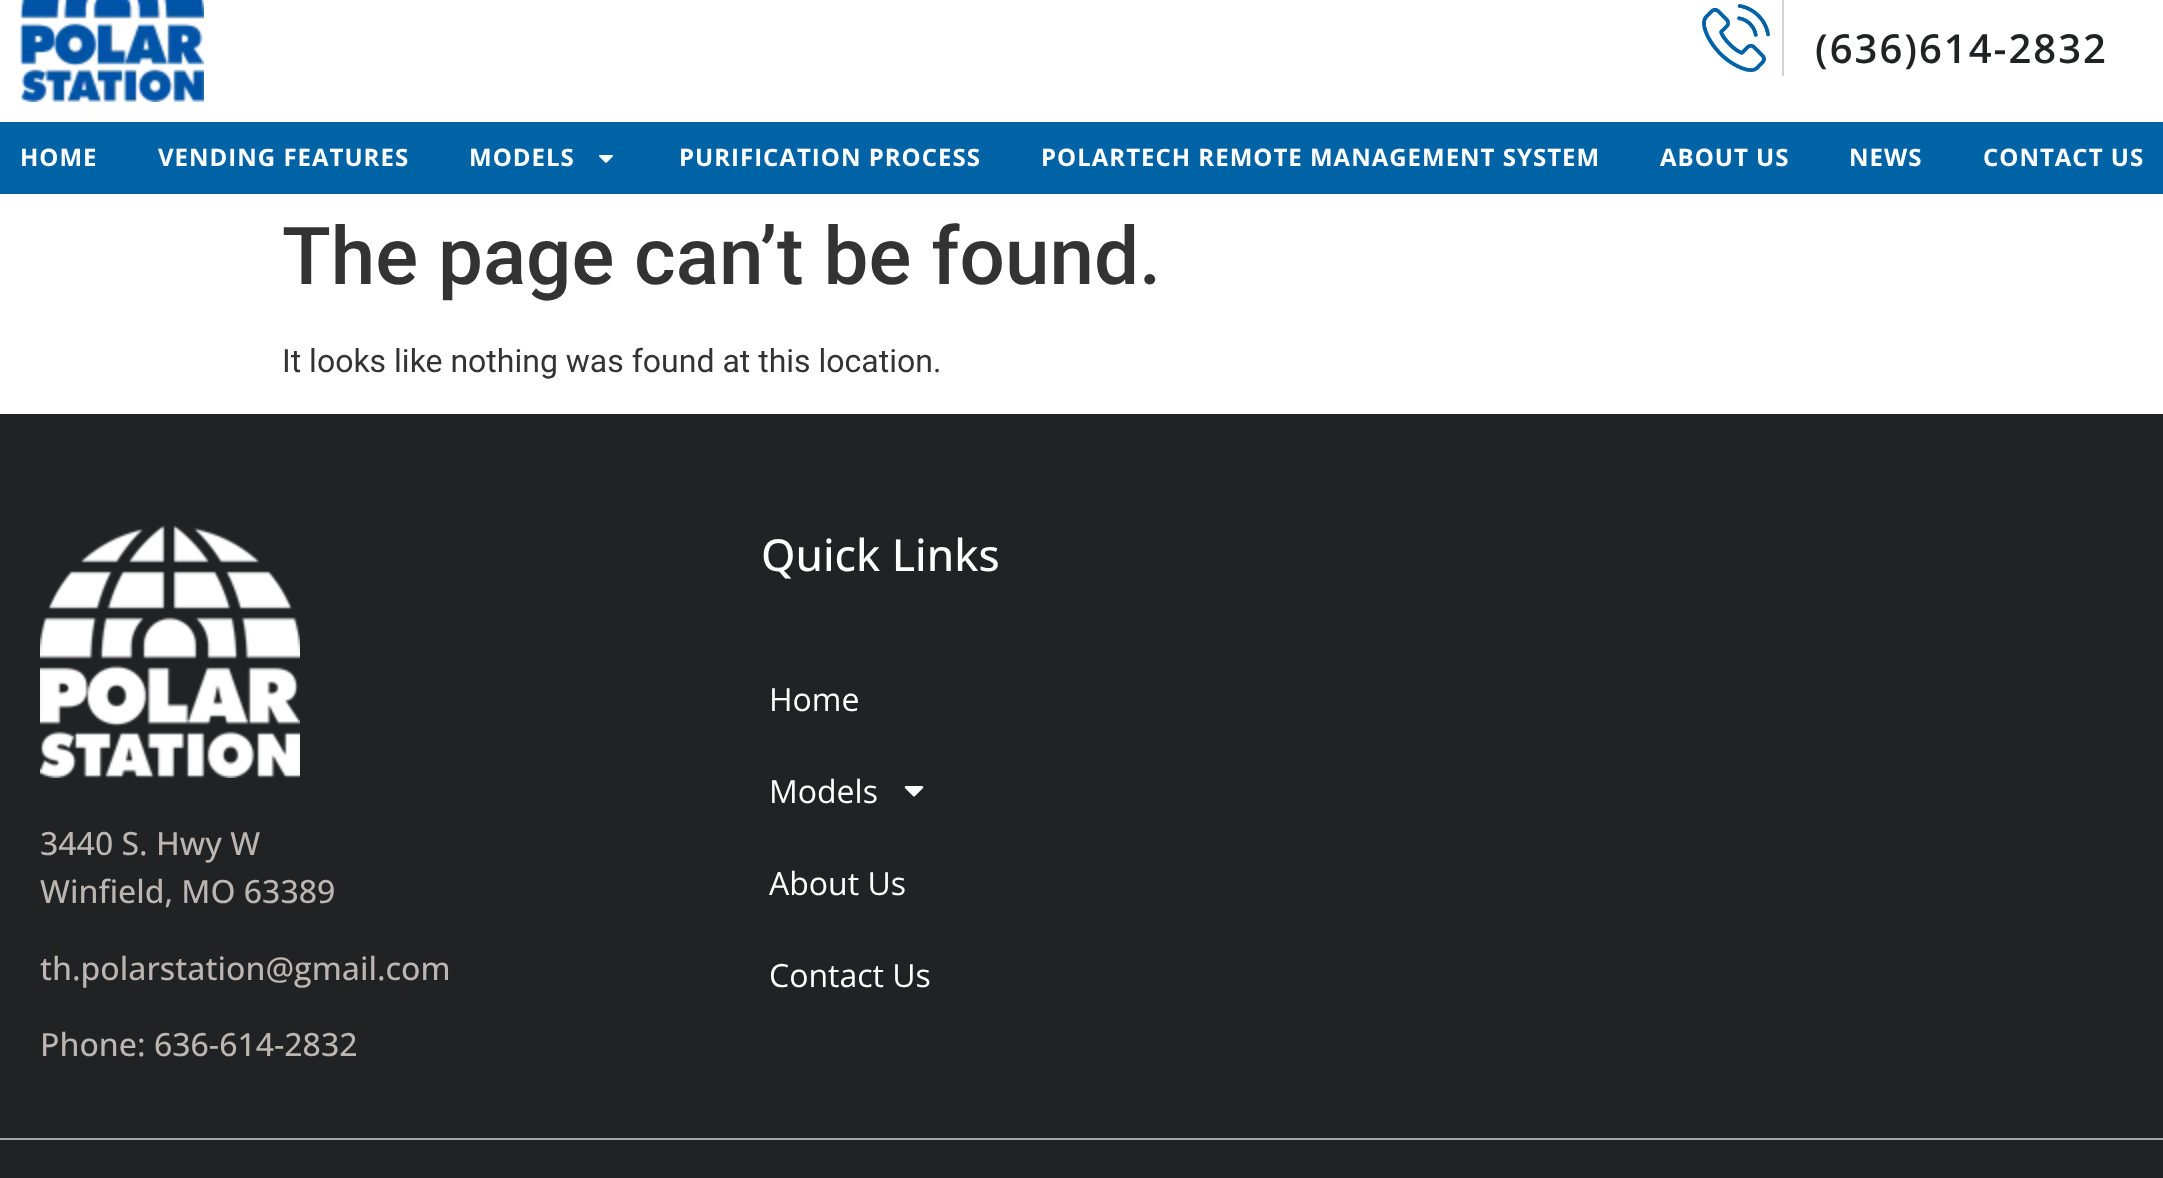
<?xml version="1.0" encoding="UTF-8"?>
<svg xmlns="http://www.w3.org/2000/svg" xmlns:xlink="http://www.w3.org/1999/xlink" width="2163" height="1178">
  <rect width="100%" height="100%" fill="#ffffff" />
  <image x="20" y="0" width="184" height="102" xlink:href="image1.png" />
  <rect x="1782" width="2" height="76" fill="#d3d3d3" />
  <image x="1702" y="4" width="68" height="68" xlink:href="image2.png" />
  <rect y="122" width="2163" height="72" fill="#0063a6" />
  <image x="599" y="155" width="14" height="8" xlink:href="image3.png" />
  <rect y="414" width="2163" height="764" fill="#212224" />
  <image x="40" y="526" width="260" height="252" xlink:href="image4.png" />
  <image x="904" y="786" width="20" height="11" xlink:href="image5.png" />
  <rect y="1138" width="2163" height="2" fill="#a8a8a8" />
  <text x="1815" y="63" style="font-family: Open Sans; font-size: 40px; font-weight: 600; letter-spacing: 2px; fill: #212224">(636)614-2832</text>
  <text x="20" y="166" style="font-family: Open Sans; font-size: 24px; font-weight: bold; letter-spacing: 1px; fill: #ffffff">HOME</text>
  <text x="158" y="166" style="font-family: Open Sans; font-size: 24px; font-weight: bold; letter-spacing: 1px; fill: #ffffff">VENDING FEATURES</text>
  <text x="469" y="166" style="font-family: Open Sans; font-size: 24px; font-weight: bold; letter-spacing: 1px; fill: #ffffff">MODELS</text>
  <text x="679" y="166" style="font-family: Open Sans; font-size: 24px; font-weight: bold; letter-spacing: 1px; fill: #ffffff">PURIFICATION PROCESS</text>
  <text x="1041" y="166" style="font-family: Open Sans; font-size: 24px; font-weight: bold; letter-spacing: 1px; fill: #ffffff">POLARTECH REMOTE MANAGEMENT SYSTEM</text>
  <text x="1660" y="166" style="font-family: Open Sans; font-size: 24px; font-weight: bold; letter-spacing: 1px; fill: #ffffff">ABOUT US</text>
  <text x="1849" y="166" style="font-family: Open Sans; font-size: 24px; font-weight: bold; letter-spacing: 1px; fill: #ffffff">NEWS</text>
  <text x="1983" y="166" style="font-family: Open Sans; font-size: 24px; font-weight: bold; letter-spacing: 1px; fill: #ffffff">CONTACT US</text>
  <text x="282" y="284" style="font-family: Roboto; font-size: 80px; font-weight: 500; fill: #333333">The page can’t be found.</text>
  <text x="282" y="372" style="font-family: Roboto; font-size: 32px; fill: #333333">It looks like nothing was found at this location.</text>
  <text x="40" y="855" style="font-family: Open Sans; font-size: 32px; font-weight: 500; fill: #bcb6b2">3440 S. Hwy W</text>
  <text x="40" y="903" style="font-family: Open Sans; font-size: 32px; font-weight: 500; fill: #bcb6b2">Winfield, MO 63389</text>
  <text x="40" y="980" style="font-family: Open Sans; font-size: 32px; font-weight: 500; fill: #bcb6b2">th.polarstation@gmail.com</text>
  <text x="40" y="1056" style="font-family: Open Sans; font-size: 32px; font-weight: 500; fill: #bcb6b2">Phone: 636-614-2832</text>
  <text x="761" y="571" style="font-family: Open Sans; font-size: 44px; font-weight: 500; fill: #ffffff">Quick Links</text>
  <text x="769" y="711" style="font-family: Open Sans; font-size: 32px; fill: #ffffff">Home</text>
  <text x="769" y="803" style="font-family: Open Sans; font-size: 32px; fill: #ffffff">Models</text>
  <text x="769" y="895" style="font-family: Open Sans; font-size: 32px; fill: #ffffff">About Us</text>
  <text x="769" y="987" style="font-family: Open Sans; font-size: 32px; fill: #ffffff">Contact Us</text>
</svg>
